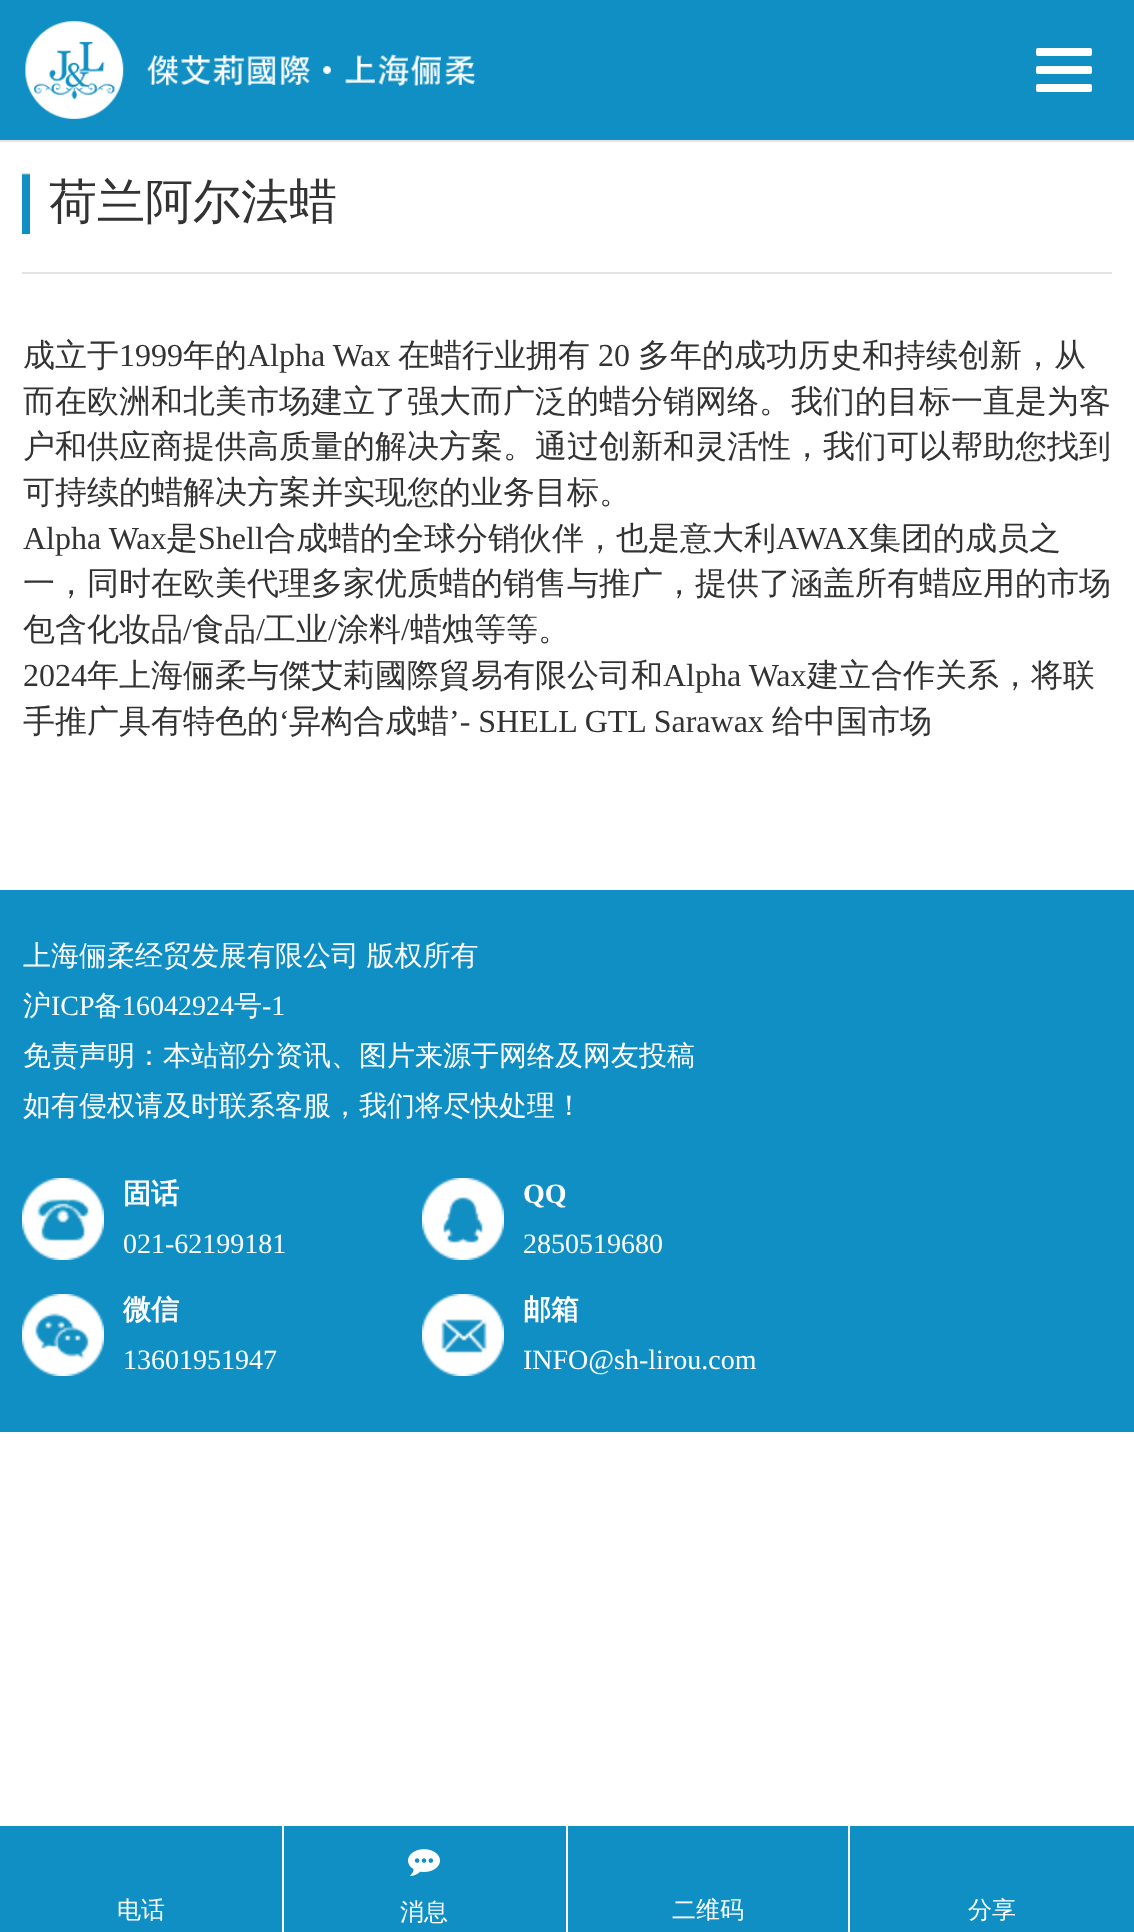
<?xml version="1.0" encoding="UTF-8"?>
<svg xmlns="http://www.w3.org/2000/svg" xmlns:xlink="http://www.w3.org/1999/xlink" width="1134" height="1932">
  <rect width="100%" height="100%" fill="#ffffff" />
  <rect width="1134" height="140" fill="#108fc4" />
  <rect y="140" width="1134" height="2" fill="#e5e3e3" />
  <image x="25" y="21" width="450" height="98" xlink:href="image1.png" />
  <rect x="1036" y="48" width="56" height="8" rx="2" fill="#ffffff" />
  <rect x="1036" y="66" width="56" height="8" rx="2" fill="#ffffff" />
  <rect x="1036" y="84" width="56" height="8" rx="2" fill="#ffffff" />
  <rect x="22" y="272" width="1090" height="2" fill="#e3e3e3" />
  <image x="22" y="173" width="8" height="61" xlink:href="image2.png" />
  <rect y="890" width="1134" height="542" fill="#108fc4" />
  <image x="22" y="1178" width="82" height="82" xlink:href="image3.png" />
  <image x="422" y="1178" width="82" height="82" xlink:href="image4.png" />
  <image x="22" y="1294" width="82" height="82" xlink:href="image5.png" />
  <image x="422" y="1294" width="82" height="82" xlink:href="image6.png" />
  <rect y="1826" width="1134" height="106" fill="#108fc4" />
  <rect x="282" y="1826" width="2" height="106" fill="#ffffff" />
  <rect x="566" y="1826" width="2" height="106" fill="#ffffff" />
  <image x="408" y="1849" width="32" height="27" xlink:href="image7.png" />
  <rect x="848" y="1826" width="2" height="106" fill="#ffffff" />
  <text x="49" y="218" style="font-family: WenQuanYi Zen Hei; font-size: 48px; font-weight: 500; fill: #333333">荷兰阿尔法蜡</text>
  <text x="23" y="366" style="font-family: WenQuanYi Zen Hei; font-size: 32px; font-weight: 500; fill: #333333">成立于</text>
  <text x="119" y="366" style="font-family: Liberation Serif; font-size: 32px; fill: #333333">1999</text>
  <text x="183" y="366" style="font-family: WenQuanYi Zen Hei; font-size: 32px; font-weight: 500; fill: #333333">年的</text>
  <text x="247" y="366" style="font-family: Liberation Serif; font-size: 32px; fill: #333333">Alpha Wax</text>
  <text x="398" y="366" style="font-family: WenQuanYi Zen Hei; font-size: 32px; font-weight: 500; fill: #333333">在蜡行业拥有</text>
  <text x="598" y="366" style="font-family: Liberation Serif; font-size: 32px; fill: #333333">20</text>
  <text x="638" y="366" style="font-family: WenQuanYi Zen Hei; font-size: 32px; font-weight: 500; fill: #333333">多年的成功历史和持续创新，从</text>
  <text x="23" y="412" style="font-family: WenQuanYi Zen Hei; font-size: 32px; font-weight: 500; fill: #333333">而在欧洲和北美市场建立了强大而广泛的蜡分销网络。我们的目标一直是为客</text>
  <text x="23" y="457" style="font-family: WenQuanYi Zen Hei; font-size: 32px; font-weight: 500; fill: #333333">户和供应商提供高质量的解决方案。通过创新和灵活性，我们可以帮助您找到</text>
  <text x="23" y="503" style="font-family: WenQuanYi Zen Hei; font-size: 32px; font-weight: 500; fill: #333333">可持续的蜡解决方案并实现您的业务目标。</text>
  <text x="23" y="549" style="font-family: Liberation Serif; font-size: 32px; fill: #333333">Alpha Wax</text>
  <text x="166" y="549" style="font-family: WenQuanYi Zen Hei; font-size: 32px; font-weight: 500; fill: #333333">是</text>
  <text x="198" y="549" style="font-family: Liberation Serif; font-size: 32px; fill: #333333">Shell</text>
  <text x="264" y="549" style="font-family: WenQuanYi Zen Hei; font-size: 32px; font-weight: 500; fill: #333333">合成蜡的全球分销伙伴，也是意大利</text>
  <text x="776" y="549" style="font-family: Liberation Serif; font-size: 32px; fill: #333333">AWAX</text>
  <text x="869" y="549" style="font-family: WenQuanYi Zen Hei; font-size: 32px; font-weight: 500; fill: #333333">集团的成员之</text>
  <text x="23" y="594" style="font-family: WenQuanYi Zen Hei; font-size: 32px; font-weight: 500; fill: #333333">一，同时在欧美代理多家优质蜡的销售与推广，提供了涵盖所有蜡应用的市场</text>
  <text x="23" y="640" style="font-family: WenQuanYi Zen Hei; font-size: 32px; font-weight: 500; fill: #333333">包含化妆品</text>
  <text x="183" y="640" style="font-family: Liberation Serif; font-size: 32px; fill: #333333">/</text>
  <text x="192" y="640" style="font-family: WenQuanYi Zen Hei; font-size: 32px; font-weight: 500; fill: #333333">食品</text>
  <text x="256" y="640" style="font-family: Liberation Serif; font-size: 32px; fill: #333333">/</text>
  <text x="264" y="640" style="font-family: WenQuanYi Zen Hei; font-size: 32px; font-weight: 500; fill: #333333">工业</text>
  <text x="328" y="640" style="font-family: Liberation Serif; font-size: 32px; fill: #333333">/</text>
  <text x="337" y="640" style="font-family: WenQuanYi Zen Hei; font-size: 32px; font-weight: 500; fill: #333333">涂料</text>
  <text x="401" y="640" style="font-family: Liberation Serif; font-size: 32px; fill: #333333">/</text>
  <text x="410" y="640" style="font-family: WenQuanYi Zen Hei; font-size: 32px; font-weight: 500; fill: #333333">蜡烛等等。</text>
  <text x="23" y="686" style="font-family: Liberation Serif; font-size: 32px; fill: #333333">2024</text>
  <text x="87" y="686" style="font-family: WenQuanYi Zen Hei; font-size: 32px; font-weight: 500; fill: #333333">年上海俪柔与傑艾莉國際貿易有限公司和</text>
  <text x="663" y="686" style="font-family: Liberation Serif; font-size: 32px; fill: #333333">Alpha Wax</text>
  <text x="807" y="686" style="font-family: WenQuanYi Zen Hei; font-size: 32px; font-weight: 500; fill: #333333">建立合作关系，将联</text>
  <text x="23" y="732" style="font-family: WenQuanYi Zen Hei; font-size: 32px; font-weight: 500; fill: #333333">手推广具有特色的</text>
  <text x="279" y="732" style="font-family: Liberation Serif; font-size: 32px; fill: #333333">‘</text>
  <text x="289" y="732" style="font-family: WenQuanYi Zen Hei; font-size: 32px; font-weight: 500; fill: #333333">异构合成蜡</text>
  <text x="449" y="732" style="font-family: Liberation Serif; font-size: 32px; fill: #333333">’- SHELL GTL Sarawax</text>
  <text x="772" y="732" style="font-family: WenQuanYi Zen Hei; font-size: 32px; font-weight: 500; fill: #333333">给中国市场</text>
  <text x="23" y="965" word-spacing="-1" style="font-family: WenQuanYi Zen Hei; font-size: 28px; font-weight: 500; fill: #ffffff">上海俪柔经贸发展有限公司 版权所有</text>
  <text x="23" y="1015" style="font-family: WenQuanYi Zen Hei; font-size: 28px; font-weight: 500; fill: #ffffff">沪</text>
  <text x="51" y="1015" style="font-family: Liberation Serif; font-size: 28px; fill: #ffffff">ICP</text>
  <text x="94" y="1015" style="font-family: WenQuanYi Zen Hei; font-size: 28px; font-weight: 500; fill: #ffffff">备</text>
  <text x="122" y="1015" style="font-family: Liberation Serif; font-size: 28px; fill: #ffffff">16042924</text>
  <text x="234" y="1015" style="font-family: WenQuanYi Zen Hei; font-size: 28px; font-weight: 500; fill: #ffffff">号</text>
  <text x="262" y="1015" style="font-family: Liberation Serif; font-size: 28px; fill: #ffffff">-1</text>
  <text x="23" y="1065" style="font-family: WenQuanYi Zen Hei; font-size: 28px; font-weight: 500; fill: #ffffff">免责声明：本站部分资讯、图片来源于网络及网友投稿</text>
  <text x="23" y="1115" style="font-family: WenQuanYi Zen Hei; font-size: 28px; font-weight: 500; fill: #ffffff">如有侵权请及时联系客服，我们将尽快处理！</text>
  <text x="123" y="1203" style="font-family: WenQuanYi Zen Hei; font-size: 28px; font-weight: bold; fill: #ffffff">固话</text>
  <text x="123" y="1253" style="font-family: Liberation Serif; font-size: 28px; fill: #ffffff">021-62199181</text>
  <text x="523" y="1203" style="font-family: Liberation Serif; font-size: 28px; font-weight: bold; fill: #ffffff">QQ</text>
  <text x="523" y="1253" style="font-family: Liberation Serif; font-size: 28px; fill: #ffffff">2850519680</text>
  <text x="123" y="1319" style="font-family: WenQuanYi Zen Hei; font-size: 28px; font-weight: bold; fill: #ffffff">微信</text>
  <text x="123" y="1369" style="font-family: Liberation Serif; font-size: 28px; fill: #ffffff">13601951947</text>
  <text x="523" y="1319" style="font-family: WenQuanYi Zen Hei; font-size: 28px; font-weight: bold; fill: #ffffff">邮箱</text>
  <text x="523" y="1369" style="font-family: Liberation Serif; font-size: 28px; fill: #ffffff">INFO@sh-lirou.com</text>
  <text x="117" y="1918" style="font-family: WenQuanYi Zen Hei; font-size: 24px; font-weight: 500; fill: #ffffff">电话</text>
  <text x="400" y="1920" style="font-family: WenQuanYi Zen Hei; font-size: 24px; font-weight: 500; fill: #ffffff">消息</text>
  <text x="672" y="1918" style="font-family: WenQuanYi Zen Hei; font-size: 24px; font-weight: 500; fill: #ffffff">二维码</text>
  <text x="968" y="1918" style="font-family: WenQuanYi Zen Hei; font-size: 24px; font-weight: 500; fill: #ffffff">分享</text>
</svg>
